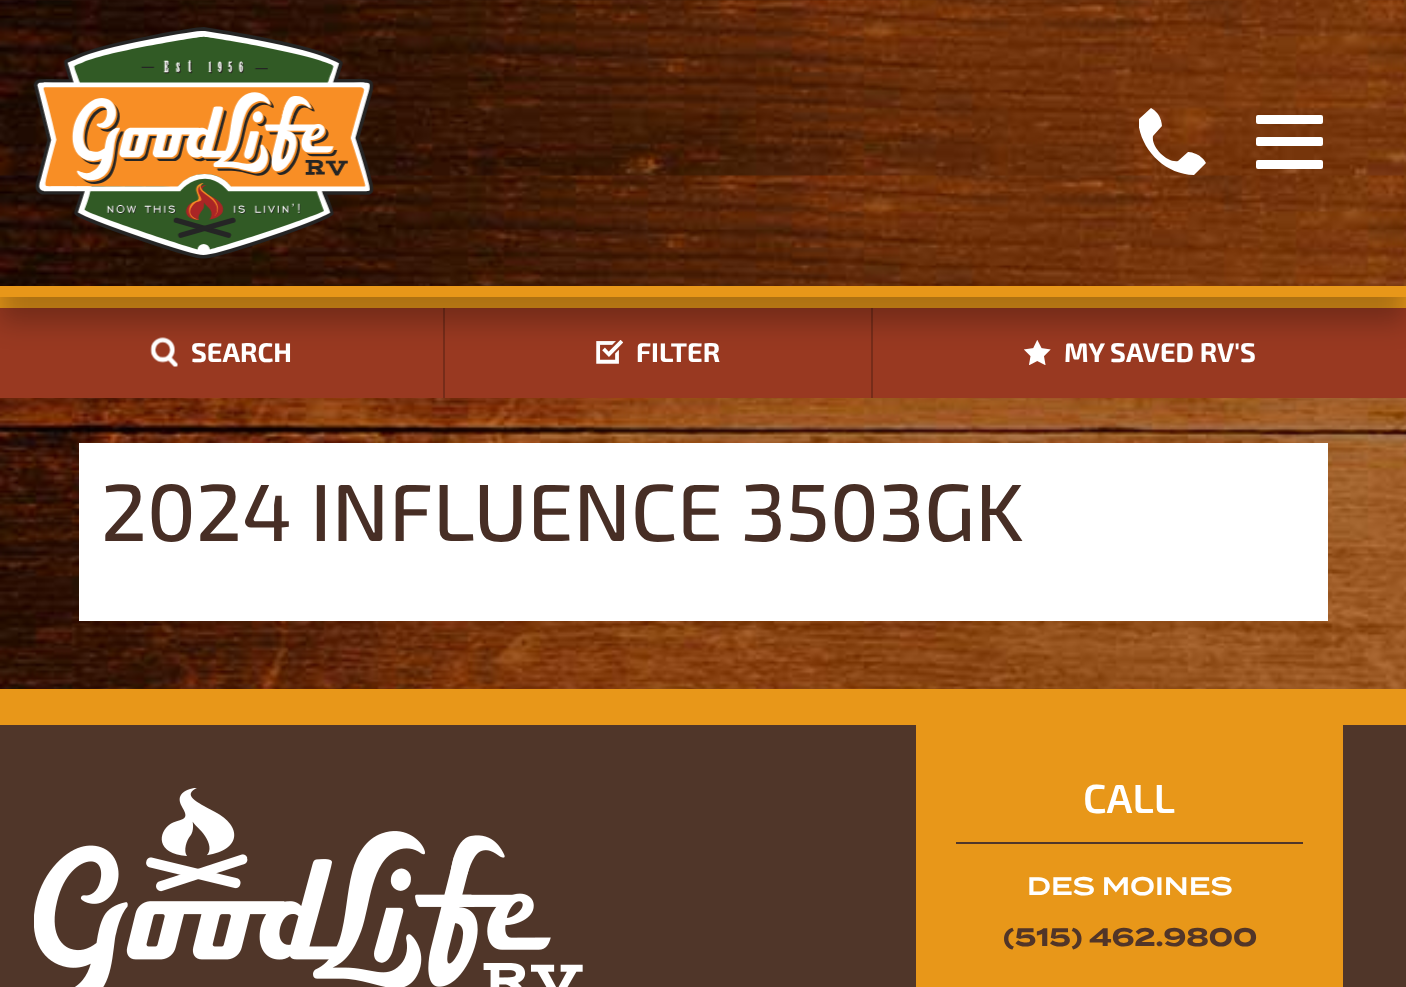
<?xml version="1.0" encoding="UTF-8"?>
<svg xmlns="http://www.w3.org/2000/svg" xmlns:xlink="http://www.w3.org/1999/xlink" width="1406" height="987">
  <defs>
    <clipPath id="clip1"><rect x="1139" y="108" width="67" height="68" /></clipPath>
    <clipPath id="clip2"><rect x="916" y="788" width="427" height="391" /></clipPath>
  </defs>
  <rect width="100%" height="100%" fill="#ffffff" />
  <image x="0" y="398" width="1406" height="291" xlink:href="image1.png" />
  <rect y="308" width="1406" height="90" fill="#993921" />
  <rect y="297" width="1406" height="11" fill="#e89719" />
  <rect x="443" y="308" width="2" height="90" fill="#762c19" />
  <image x="150" y="337" width="28" height="30" xlink:href="image4.png" />
  <rect x="871" y="308" width="2" height="90" fill="#762c19" />
  <image x="596" y="340" width="27" height="24" xlink:href="image5.png" />
  <image x="1024" y="340" width="27" height="25" xlink:href="image6.png" />
  <rect y="25" width="1406" height="297" fill="#000000" fill-opacity="0.25" filter="blur(13.5px)" />
  <image x="0" y="0" width="1406" height="286" xlink:href="image2.png" />
  <rect y="286" width="1406" height="11" fill="#e89719" />
  <image x="33" y="27" width="341" height="232" xlink:href="image3.png" />
  <g clip-path="url(#clip1)">
    <path d="M 1162 126 c 0 0 0 -12 -11 -18 l -13 12 c 2 29 26 54 56 55 l 12 -12 c -6 -11 -18 -11 -18 -11 l -10 9 c -11 2 -27 -14 -25 -25 z" fill="#ffffff" />
  </g>
  <rect x="1256" y="115" width="67" height="9" rx="2" fill="#ffffff" />
  <rect x="1256" y="137" width="67" height="9" rx="2" fill="#ffffff" />
  <rect x="1256" y="160" width="67" height="9" rx="2" fill="#ffffff" />
  <rect x="79" y="443" width="1249" height="178" fill="#ffffff" />
  <rect y="725" width="1406" height="262" fill="#503629" />
  <rect y="689" width="1406" height="36" fill="#e89719" />
  <image x="34" y="788" width="549" height="199" xlink:href="image7.png" />
  <g clip-path="url(#clip2)">
    <path d="M 896 762 v 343 c 0 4 6 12 13 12 l 222 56 l 221 -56 c 8 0 14 -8 14 -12 v -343" fill="#e89719" />
  </g>
  <rect x="916" y="725" width="427" height="63" fill="#e89719" />
  <rect x="956" y="842" width="347" height="2" fill="#503629" />
  <text x="191" y="362" style="font-family: 'Exo 2'; font-size: 27px; font-weight: bold; fill: #ffffff">SEARCH</text>
  <text x="636" y="362" style="font-family: 'Exo 2'; font-size: 27px; font-weight: bold; fill: #ffffff">FILTER</text>
  <text x="1064" y="362" style="font-family: 'Exo 2'; font-size: 27px; font-weight: bold; fill: #ffffff">MY SAVED RV'S</text>
  <text x="101" y="541" style="font-family: 'Exo 2'; font-size: 81px; font-weight: 500; fill: #472e25">2024 INFLUENCE 3503GK</text>
  <text x="1083" y="813" style="font-family: 'Exo 2'; font-size: 40.5px; font-weight: 600; fill: #ffffff">CALL</text>
  <text x="1027" y="895" style="font-family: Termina; font-size: 25.25px; font-weight: 600; fill: #ffffff">DES MOINES</text>
  <text x="1003" y="946" style="font-family: Termina; font-size: 25.25px; font-weight: bold; fill: #513528">(515) 462.9800</text>
</svg>
